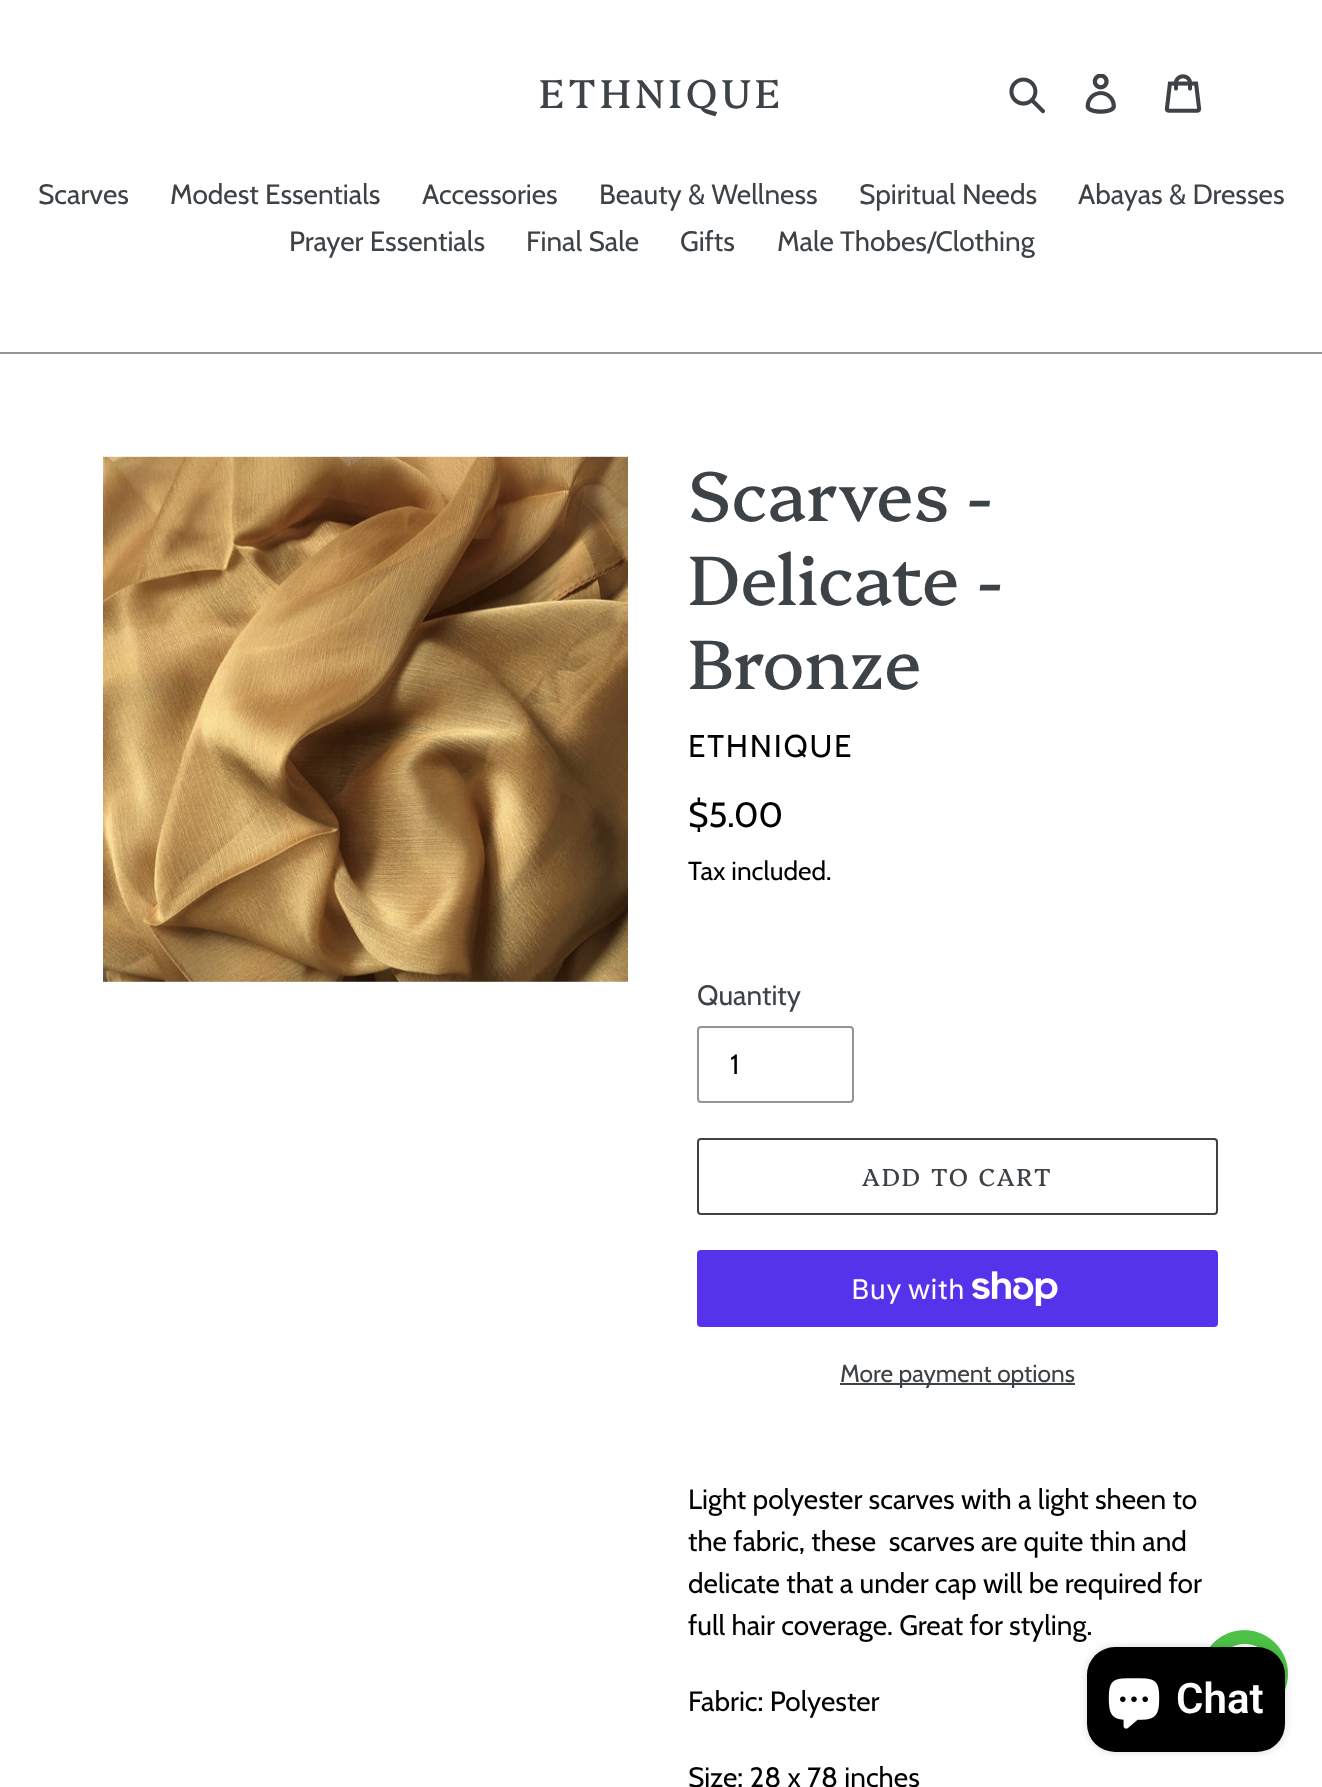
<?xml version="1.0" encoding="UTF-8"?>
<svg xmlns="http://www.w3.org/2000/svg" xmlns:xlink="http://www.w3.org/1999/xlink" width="1322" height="1787">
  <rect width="100%" height="100%" fill="#ffffff" />
  <image x="1009" y="77" width="36" height="37" xlink:href="image1.png" />
  <image x="1085" y="74" width="31" height="40" xlink:href="image2.png" />
  <image x="1164" y="74" width="38" height="39" xlink:href="image3.png" />
  <rect y="352" width="1322" height="2" fill="#949494" />
  <image x="103" y="456" width="525" height="526" xlink:href="image4.png" />
  <rect x="698" y="1027" width="155" height="75" rx="3" fill="none" stroke="#949494" stroke-width="2" />
  <rect x="698" y="1139" width="519" height="75" rx="3" fill="none" stroke="#3d4246" stroke-width="2" />
  <rect x="697" y="1250" width="521" height="77" rx="4" fill="#5433eb" />
  <image x="972" y="1271" width="86" height="35" xlink:href="image5.png" />
  <rect x="840" y="1383" width="235" height="2" fill="#3d4246" />
  <image x="1209" y="1630" width="79" height="60" xlink:href="image6.png" />
  <rect x="1087" y="1647" width="198" height="105" rx="28" fill="#000000" fill-opacity="0.15" filter="blur(4.5px)" />
  <rect x="1087" y="1647" width="198" height="105" rx="28" fill="#000000" />
  <image x="1108" y="1678" width="52" height="51" xlink:href="image7.png" />
  <text x="539" y="108" style="font-family: Platypi; font-size: 40.25px; letter-spacing: 4px; fill: #3d4246">ETHNIQUE</text>
  <text x="38" y="204" style="font-family: Cabin; font-size: 28px; fill: #3d4246">Scarves</text>
  <text x="170" y="204" style="font-family: Cabin; font-size: 28px; fill: #3d4246">Modest Essentials</text>
  <text x="422" y="204" style="font-family: Cabin; font-size: 28px; fill: #3d4246">Accessories</text>
  <text x="599" y="204" style="font-family: Cabin; font-size: 28px; fill: #3d4246">Beauty &amp; Wellness</text>
  <text x="859" y="204" style="font-family: Cabin; font-size: 28px; fill: #3d4246">Spiritual Needs</text>
  <text x="1078" y="204" style="font-family: Cabin; font-size: 28px; fill: #3d4246">Abayas &amp; Dresses</text>
  <text x="289" y="251" style="font-family: Cabin; font-size: 28px; fill: #3d4246">Prayer Essentials</text>
  <text x="526" y="251" style="font-family: Cabin; font-size: 28px; fill: #3d4246">Final Sale</text>
  <text x="680" y="251" style="font-family: Cabin; font-size: 28px; fill: #3d4246">Gifts</text>
  <text x="777" y="251" style="font-family: Cabin; font-size: 28px; fill: #3d4246">Male Thobes/Clothing</text>
  <text x="688" y="521" style="font-family: Platypi; font-size: 70px; fill: #3d4246">Scarves -</text>
  <text x="688" y="605" style="font-family: Platypi; font-size: 70px; fill: #3d4246">Delicate -</text>
  <text x="688" y="689" style="font-family: Platypi; font-size: 70px; fill: #3d4246">Bronze</text>
  <text x="688" y="757" style="font-family: Cabin; font-size: 31.5px; letter-spacing: 1.75px; fill: #000000">ETHNIQUE</text>
  <text x="688" y="827" style="font-family: Cabin; font-size: 35px; fill: #000000">$5.00</text>
  <text x="688" y="880" style="font-family: Cabin; font-size: 26.25px; fill: #000000">Tax included.</text>
  <text x="697" y="1005" style="font-family: Cabin; font-size: 28px; fill: #3d4246">Quantity</text>
  <text x="730" y="1074" style="font-family: Cabin; font-size: 28px; fill: #000000">1</text>
  <text x="862" y="1186" style="font-family: Platypi; font-size: 24.5px; letter-spacing: 2px; fill: #3d4246">ADD TO CART</text>
  <text x="851" y="1299" style="font-family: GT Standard; font-size: 28px; fill: #ffffff">Buy with</text>
  <text x="840" y="1382" style="font-family: Cabin; font-size: 24.5px; fill: #3d4246">More payment options</text>
  <text x="688" y="1509" style="font-family: Cabin; font-size: 28px; fill: #000000">Light polyester scarves with a light sheen to</text>
  <text x="688" y="1551" style="font-family: Cabin; font-size: 28px; fill: #000000" xml:space="preserve">the fabric, these  scarves are quite thin and</text>
  <text x="688" y="1593" style="font-family: Cabin; font-size: 28px; fill: #000000">delicate that a under cap will be required for</text>
  <text x="688" y="1635" style="font-family: Cabin; font-size: 28px; fill: #000000">full hair coverage. Great for styling.</text>
  <text x="688" y="1711" style="font-family: Cabin; font-size: 28px; fill: #000000">Fabric: Polyester</text>
  <text x="688" y="1787" style="font-family: Cabin; font-size: 28px; fill: #000000">Size: 28 x 78 inches</text>
  <text x="1176" y="1713" style="font-family: Roboto; font-size: 42px; font-weight: 600; fill: #ffffff">Chat</text>
</svg>
